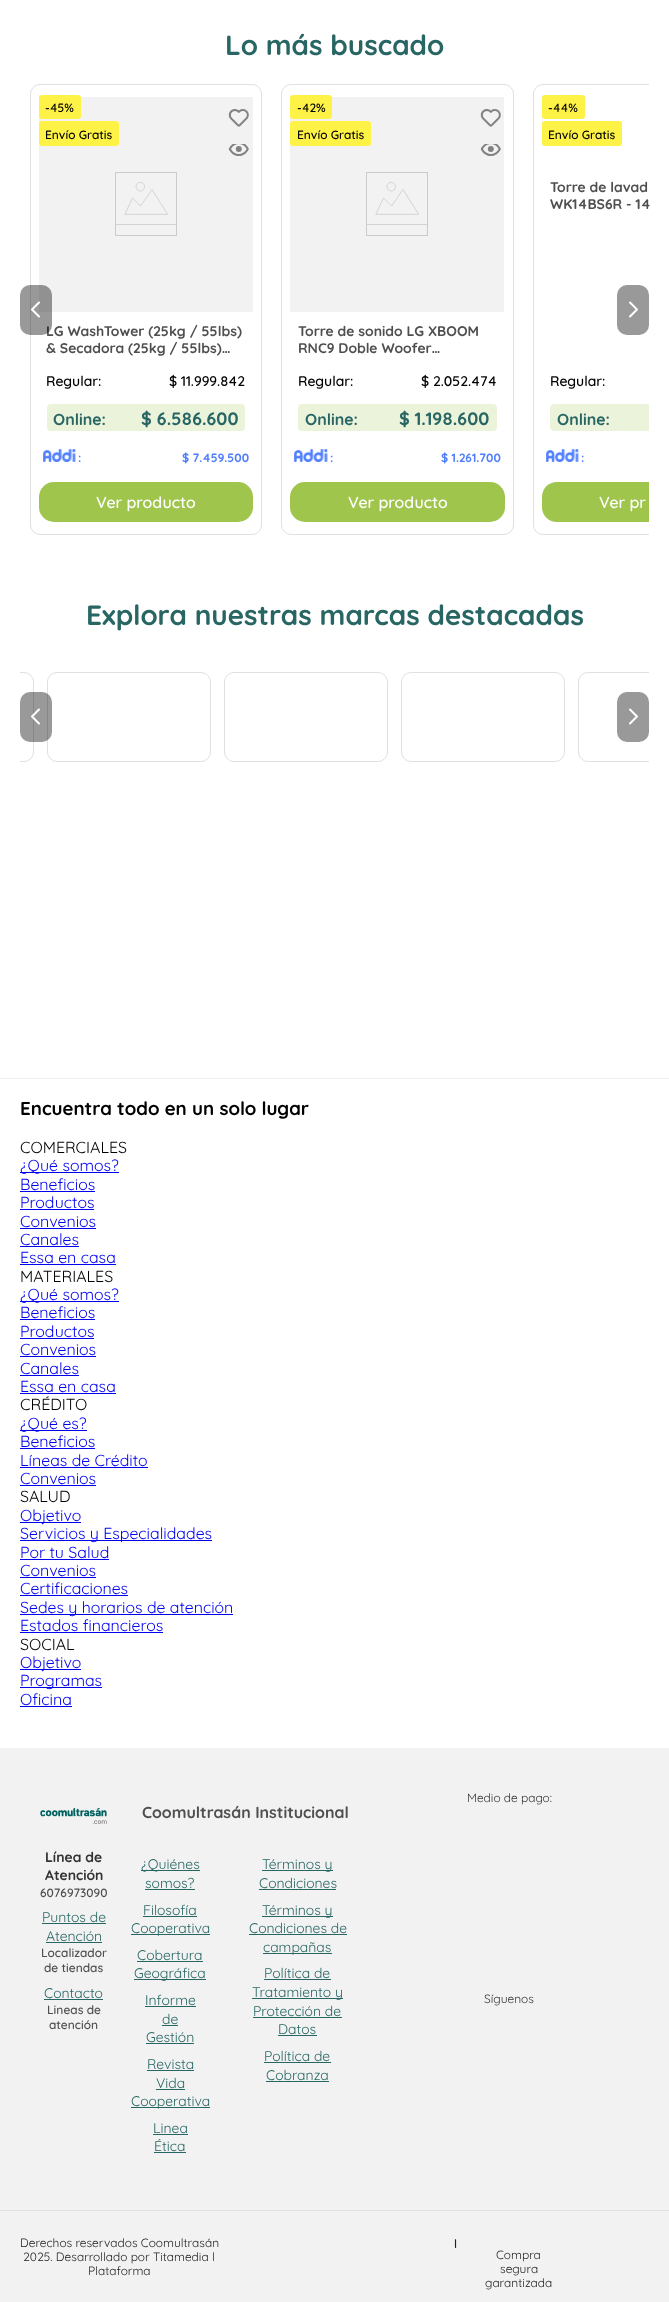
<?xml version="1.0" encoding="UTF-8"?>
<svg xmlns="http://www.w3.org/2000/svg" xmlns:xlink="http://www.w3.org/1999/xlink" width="669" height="2302">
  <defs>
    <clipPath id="clip1"><rect x="20" y="84" width="629" height="451" /></clipPath>
    <clipPath id="clip2"><rect x="20" y="672" width="629" height="90" /></clipPath>
  </defs>
  <rect width="100%" height="100%" fill="#ffffff" />
  <rect x="30.5" y="84.5" width="231" height="450" rx="9.5" fill="none" stroke="#e0e0e0" />
  <rect x="39" y="97" width="214" height="215" fill="#f2f2f2" />
  <rect x="115.5" y="172.5" width="61" height="63" fill="none" stroke="#cacbcc" />
  <path d="M 125 214 l 7.5 -16 l 8 8 l 11.5 -16.5 l 15.5 24.5 z" fill="none" stroke="#cacbcc" stroke-width="0.8" stroke-linecap="round" stroke-linejoin="round" />
  <path d="M 144.5 186.5 c 0 6 -8.5 6 -8.5 0 c 0 -5.5 8.5 -5.5 8.5 0 z" fill="none" stroke="#cacbcc" stroke-width="0.8" />
  <rect x="116" y="224" width="61" height="1" fill="#cacbcc" fill-opacity="0.8" />
  <rect x="39" y="95" width="42" height="24" rx="3" fill="#fff246" />
  <rect x="39" y="121" width="80" height="25" rx="3" fill="#fff246" />
  <image x="228" y="109" width="21" height="18" xlink:href="image1.png" />
  <image x="228" y="144" width="21" height="12" xlink:href="image2.png" />
  <rect x="47" y="404" width="198" height="27" rx="4" fill="#ecf3db" />
  <image x="43" y="449" width="33" height="13" xlink:href="image3.png" />
  <rect x="39" y="482" width="214" height="40" rx="15" fill="#9fc54c" />
  <rect x="281.5" y="84.5" width="232" height="450" rx="9.5" fill="none" stroke="#e0e0e0" />
  <rect x="290" y="97" width="214" height="215" fill="#f2f2f2" />
  <rect x="366.5" y="172.5" width="61" height="63" fill="none" stroke="#cacbcc" />
  <path d="M 376 214 l 7.5 -16 l 8 8 l 11.5 -16.5 l 15.5 24.5 z" fill="none" stroke="#cacbcc" stroke-width="0.8" stroke-linecap="round" stroke-linejoin="round" />
  <path d="M 395.5 186.5 c 0 6 -8.5 6 -8.5 0 c 0 -5.5 8.5 -5.5 8.5 0 z" fill="none" stroke="#cacbcc" stroke-width="0.8" />
  <rect x="367" y="224" width="61" height="1" fill="#cacbcc" fill-opacity="0.8" />
  <rect x="290" y="95" width="42" height="24" rx="3" fill="#fff246" />
  <rect x="290" y="121" width="81" height="25" rx="3" fill="#fff246" />
  <image x="480" y="109" width="21" height="18" xlink:href="image1.png" />
  <image x="480" y="144" width="21" height="12" xlink:href="image4.png" />
  <rect x="298" y="404" width="199" height="27" rx="4" fill="#ecf3db" />
  <image x="294" y="449" width="34" height="13" xlink:href="image5.png" />
  <rect x="290" y="482" width="215" height="40" rx="15" fill="#9fc54c" />
  <g clip-path="url(#clip1)">
    <rect x="533.5" y="84.5" width="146" height="450" rx="9.5" fill="none" stroke="#e0e0e0" />
  </g>
  <rect x="542" y="95" width="43" height="24" rx="3" fill="#fff246" />
  <rect x="542" y="121" width="80" height="25" rx="3" fill="#fff246" />
  <path d="M 554 404 h 95 v 27 h -95 c -2 0 -4 -2 -4 -4 v -19 c 0 -2 2 -4 4 -4 z" fill="#ecf3db" />
  <image x="546" y="449" width="33" height="13" xlink:href="image6.png" />
  <path d="M 557 482 h 92 v 40 h -92 c -8.5 0 -15 -6.5 -15 -15 v -10 c 0 -8.5 6.5 -15 15 -15 z" fill="#9fc54c" />
  <rect x="617" y="285" width="32" height="50" rx="10" fill="#999999" />
  <path d="M 630 316.5 l 7 -7 l -7 -7" fill="none" stroke="#ffffff" stroke-width="2" stroke-linecap="round" stroke-linejoin="round" />
  <g clip-path="url(#clip2)">
    <rect x="-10.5" y="672.5" width="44" height="89" rx="9.5" fill="none" stroke="#e0e0e0" />
  </g>
  <rect x="47.5" y="672.5" width="163" height="89" rx="9.5" fill="none" stroke="#e0e0e0" />
  <rect x="224.5" y="672.5" width="163" height="89" rx="9.5" fill="none" stroke="#e0e0e0" />
  <rect x="401.5" y="672.5" width="163" height="89" rx="9.5" fill="none" stroke="#e0e0e0" />
  <g clip-path="url(#clip2)">
    <rect x="578.5" y="672.5" width="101" height="89" rx="9.5" fill="none" stroke="#e0e0e0" />
  </g>
  <rect x="20" y="692" width="32" height="50" rx="10" fill="#000000" fill-opacity="0.4" />
  <path d="M 39 709.5 l -7 7 l 7 7" fill="none" stroke="#ffffff" stroke-width="2" stroke-linecap="round" stroke-linejoin="round" />
  <rect x="617" y="692" width="32" height="50" rx="10" fill="#999999" />
  <path d="M 630 723.5 l 7 -7 l -7 -7" fill="none" stroke="#ffffff" stroke-width="2" stroke-linecap="round" stroke-linejoin="round" />
  <rect y="1748" width="669" height="554" fill="#f2f2f2" />
  <rect y="1078" width="669" height="1" fill="#f0f0f0" />
  <rect x="20" y="1172" width="99" height="1" fill="#0000ee" />
  <rect x="20" y="1191" width="75" height="1" fill="#0000ee" />
  <rect x="20" y="1209" width="74" height="1" fill="#0000ee" />
  <rect x="20" y="1228" width="76" height="1" fill="#0000ee" />
  <rect x="20" y="1246" width="59" height="1" fill="#0000ee" />
  <rect x="20" y="1264" width="96" height="1" fill="#0000ee" />
  <rect x="20" y="1301" width="99" height="1" fill="#0000ee" />
  <rect x="20" y="1319" width="75" height="1" fill="#0000ee" />
  <rect x="20" y="1338" width="74" height="1" fill="#0000ee" />
  <rect x="20" y="1356" width="76" height="1" fill="#0000ee" />
  <rect x="20" y="1375" width="59" height="1" fill="#0000ee" />
  <rect x="20" y="1393" width="96" height="1" fill="#0000ee" />
  <rect x="20" y="1430" width="67" height="1" fill="#0000ee" />
  <rect x="20" y="1448" width="75" height="1" fill="#0000ee" />
  <rect x="20" y="1467" width="128" height="1" fill="#0000ee" />
  <rect x="20" y="1485" width="76" height="1" fill="#0000ee" />
  <rect x="20" y="1522" width="61" height="1" fill="#0000ee" />
  <rect x="20" y="1540" width="192" height="1" fill="#0000ee" />
  <rect x="20" y="1559" width="89" height="1" fill="#0000ee" />
  <rect x="20" y="1577" width="76" height="1" fill="#0000ee" />
  <rect x="20" y="1595" width="108" height="1" fill="#0000ee" />
  <rect x="20" y="1614" width="213" height="1" fill="#0000ee" />
  <rect x="20" y="1632" width="143" height="1" fill="#0000ee" />
  <rect x="20" y="1669" width="61" height="1" fill="#0000ee" />
  <rect x="20" y="1687" width="82" height="1" fill="#0000ee" />
  <rect x="20" y="1706" width="52" height="1" fill="#0000ee" />
  <rect y="2210" width="669" height="1" fill="#e0e0e0" />
  <image x="40" y="1808" width="67" height="16" xlink:href="image7.png" />
  <rect x="42" y="1923" width="64" height="1" fill="#286664" />
  <rect x="46" y="1942" width="56" height="1" fill="#286664" />
  <rect x="44" y="1999" width="59" height="1" fill="#286664" />
  <rect x="141" y="1870" width="59" height="1" fill="#286664" />
  <rect x="145" y="1889" width="50" height="1" fill="#286664" />
  <rect x="143" y="1916" width="54" height="1" fill="#286664" />
  <rect x="131" y="1934" width="79" height="1" fill="#286664" />
  <rect x="137" y="1961" width="66" height="1" fill="#286664" />
  <rect x="134" y="1979" width="72" height="1" fill="#286664" />
  <rect x="145" y="2006" width="51" height="1" fill="#286664" />
  <rect x="162" y="2025" width="16" height="1" fill="#286664" />
  <rect x="146" y="2043" width="48" height="1" fill="#286664" />
  <rect x="147" y="2070" width="47" height="1" fill="#286664" />
  <rect x="156" y="2089" width="29" height="1" fill="#286664" />
  <rect x="131" y="2107" width="79" height="1" fill="#286664" />
  <rect x="153" y="2134" width="35" height="1" fill="#286664" />
  <rect x="154" y="2152" width="32" height="1" fill="#286664" />
  <rect x="262" y="1870" width="71" height="1" fill="#286664" />
  <rect x="259" y="1889" width="77" height="1" fill="#286664" />
  <rect x="262" y="1916" width="71" height="1" fill="#286664" />
  <rect x="249" y="1934" width="98" height="1" fill="#286664" />
  <rect x="263" y="1953" width="69" height="1" fill="#286664" />
  <rect x="264" y="1979" width="67" height="1" fill="#286664" />
  <rect x="252" y="1998" width="91" height="1" fill="#286664" />
  <rect x="253" y="2017" width="89" height="1" fill="#286664" />
  <rect x="278" y="2035" width="39" height="1" fill="#286664" />
  <rect x="264" y="2062" width="67" height="1" fill="#286664" />
  <rect x="266" y="2081" width="63" height="1" fill="#286664" />
  <text x="225" y="55" style="font-family: Quicksand; font-size: 28px; font-weight: bold; fill: #286664">Lo más buscado</text>
  <text x="45" y="112" style="font-family: Quicksand; font-size: 12px; font-weight: 500; fill: #000000">-45%</text>
  <text x="45" y="139" style="font-family: Quicksand; font-size: 12px; font-weight: 500; fill: #000000">Envío Gratis</text>
  <text x="46" y="336" style="font-family: Quicksand; font-size: 14px; font-weight: bold; fill: #4f4f4f">LG WashTower (25kg / 55lbs)</text>
  <rect x="20" y="285" width="32" height="50" rx="10" fill="#000000" fill-opacity="0.4" />
  <path d="M 39 302.5 l -7 7 l 7 7" fill="none" stroke="#ffffff" stroke-width="2" stroke-linecap="round" stroke-linejoin="round" />
  <text x="46" y="353" style="font-family: Quicksand; font-size: 14px; font-weight: bold; fill: #4f4f4f">&amp; Secadora (25kg / 55lbs)…</text>
  <text x="46" y="386" style="font-family: Quicksand; font-size: 14px; font-weight: 500; fill: #000000">Regular:</text>
  <text x="169" y="386" style="font-family: Quicksand; font-size: 14px; font-weight: 500; fill: #000000">$ 11.999.842</text>
  <text x="53" y="425" style="font-family: Quicksand; font-size: 16px; font-weight: bold; fill: #286664">Online:</text>
  <text x="141" y="425" style="font-family: Quicksand; font-size: 18px; font-weight: bold; fill: #286664">$ 6.586.600</text>
  <text x="78" y="462" style="font-family: Quicksand; font-size: 12px; font-weight: bold; fill: #4e7eff">:</text>
  <text x="182" y="462" style="font-family: Quicksand; font-size: 12px; font-weight: bold; fill: #4e7eff">$ 7.459.500</text>
  <text x="96" y="508" style="font-family: Quicksand; font-size: 16px; font-weight: 500; fill: #ffffff">Ver producto</text>
  <text x="297" y="112" style="font-family: Quicksand; font-size: 12px; font-weight: 500; fill: #000000">-42%</text>
  <text x="297" y="139" style="font-family: Quicksand; font-size: 12px; font-weight: 500; fill: #000000">Envío Gratis</text>
  <text x="298" y="336" style="font-family: Quicksand; font-size: 14px; font-weight: bold; fill: #4f4f4f">Torre de sonido LG XBOOM</text>
  <text x="298" y="353" style="font-family: Quicksand; font-size: 14px; font-weight: bold; fill: #4f4f4f">RNC9 Doble Woofer…</text>
  <text x="298" y="386" style="font-family: Quicksand; font-size: 14px; font-weight: 500; fill: #000000">Regular:</text>
  <text x="421" y="386" style="font-family: Quicksand; font-size: 14px; font-weight: 500; fill: #000000">$ 2.052.474</text>
  <text x="305" y="425" style="font-family: Quicksand; font-size: 16px; font-weight: bold; fill: #286664">Online:</text>
  <text x="399" y="425" style="font-family: Quicksand; font-size: 18px; font-weight: bold; fill: #286664">$ 1.198.600</text>
  <text x="330" y="462" style="font-family: Quicksand; font-size: 12px; font-weight: bold; fill: #4e7eff">:</text>
  <text x="441" y="462" style="font-family: Quicksand; font-size: 12px; font-weight: bold; fill: #4e7eff">$ 1.261.700</text>
  <text x="348" y="508" style="font-family: Quicksand; font-size: 16px; font-weight: 500; fill: #ffffff">Ver producto</text>
  <text x="548" y="112" style="font-family: Quicksand; font-size: 12px; font-weight: 500; fill: #000000">-44%</text>
  <text x="548" y="139" style="font-family: Quicksand; font-size: 12px; font-weight: 500; fill: #000000">Envío Gratis</text>
  <text x="550" y="192" style="font-family: Quicksand; font-size: 14px; font-weight: bold; fill: #4f4f4f">Torre de lavad</text>
  <text x="550" y="209" style="font-family: Quicksand; font-size: 14px; font-weight: bold; fill: #4f4f4f">WK14BS6R - 14</text>
  <text x="550" y="386" style="font-family: Quicksand; font-size: 14px; font-weight: 500; fill: #000000">Regular:</text>
  <text x="557" y="425" style="font-family: Quicksand; font-size: 16px; font-weight: bold; fill: #286664">Online:</text>
  <text x="581" y="462" style="font-family: Quicksand; font-size: 12px; font-weight: bold; fill: #4e7eff">:</text>
  <text x="599" y="508" style="font-family: Quicksand; font-size: 16px; font-weight: 500; fill: #ffffff">Ver pr</text>
  <text x="86" y="625" style="font-family: Quicksand; font-size: 28px; font-weight: bold; fill: #286664">Explora nuestras marcas destacadas</text>
  <text x="20" y="1115" style="font-family: Quicksand; font-size: 18.75px; font-weight: bold; fill: #000000">Encuentra todo en un solo lugar</text>
  <text x="20" y="1153" style="font-family: Quicksand; font-size: 16px; fill: #000000">COMERCIALES</text>
  <text x="20" y="1171" style="font-family: Quicksand; font-size: 16px; fill: #0000ee">¿Qué somos?</text>
  <text x="20" y="1190" style="font-family: Quicksand; font-size: 16px; fill: #0000ee">Beneficios</text>
  <text x="20" y="1208" style="font-family: Quicksand; font-size: 16px; fill: #0000ee">Productos</text>
  <text x="20" y="1227" style="font-family: Quicksand; font-size: 16px; fill: #0000ee">Convenios</text>
  <text x="20" y="1245" style="font-family: Quicksand; font-size: 16px; fill: #0000ee">Canales</text>
  <text x="20" y="1263" style="font-family: Quicksand; font-size: 16px; fill: #0000ee">Essa en casa</text>
  <text x="20" y="1282" style="font-family: Quicksand; font-size: 16px; fill: #000000">MATERIALES</text>
  <text x="20" y="1300" style="font-family: Quicksand; font-size: 16px; fill: #0000ee">¿Qué somos?</text>
  <text x="20" y="1318" style="font-family: Quicksand; font-size: 16px; fill: #0000ee">Beneficios</text>
  <text x="20" y="1337" style="font-family: Quicksand; font-size: 16px; fill: #0000ee">Productos</text>
  <text x="20" y="1355" style="font-family: Quicksand; font-size: 16px; fill: #0000ee">Convenios</text>
  <text x="20" y="1374" style="font-family: Quicksand; font-size: 16px; fill: #0000ee">Canales</text>
  <text x="20" y="1392" style="font-family: Quicksand; font-size: 16px; fill: #0000ee">Essa en casa</text>
  <text x="20" y="1410" style="font-family: Quicksand; font-size: 16px; fill: #000000">CRÉDITO</text>
  <text x="20" y="1429" style="font-family: Quicksand; font-size: 16px; fill: #0000ee">¿Qué es?</text>
  <text x="20" y="1447" style="font-family: Quicksand; font-size: 16px; fill: #0000ee">Beneficios</text>
  <text x="20" y="1466" style="font-family: Quicksand; font-size: 16px; fill: #0000ee">Líneas de Crédito</text>
  <text x="20" y="1484" style="font-family: Quicksand; font-size: 16px; fill: #0000ee">Convenios</text>
  <text x="20" y="1502" style="font-family: Quicksand; font-size: 16px; fill: #000000">SALUD</text>
  <text x="20" y="1521" style="font-family: Quicksand; font-size: 16px; fill: #0000ee">Objetivo</text>
  <text x="20" y="1539" style="font-family: Quicksand; font-size: 16px; fill: #0000ee">Servicios y Especialidades</text>
  <text x="20" y="1558" style="font-family: Quicksand; font-size: 16px; fill: #0000ee">Por tu Salud</text>
  <text x="20" y="1576" style="font-family: Quicksand; font-size: 16px; fill: #0000ee">Convenios</text>
  <text x="20" y="1594" style="font-family: Quicksand; font-size: 16px; fill: #0000ee">Certificaciones</text>
  <text x="20" y="1613" style="font-family: Quicksand; font-size: 16px; fill: #0000ee">Sedes y horarios de atención</text>
  <text x="20" y="1631" style="font-family: Quicksand; font-size: 16px; fill: #0000ee">Estados financieros</text>
  <text x="20" y="1650" style="font-family: Quicksand; font-size: 16px; fill: #000000">SOCIAL</text>
  <text x="20" y="1668" style="font-family: Quicksand; font-size: 16px; fill: #0000ee">Objetivo</text>
  <text x="20" y="1686" style="font-family: Quicksand; font-size: 16px; fill: #0000ee">Programas</text>
  <text x="20" y="1705" style="font-family: Quicksand; font-size: 16px; fill: #0000ee">Oficina</text>
  <text x="45" y="1862" style="font-family: Quicksand; font-size: 14px; font-weight: bold; fill: #333333">Línea de</text>
  <text x="45" y="1880" style="font-family: Quicksand; font-size: 14px; font-weight: bold; fill: #333333">Atención</text>
  <text x="40" y="1897" style="font-family: Quicksand; font-size: 12px; font-weight: 500; fill: #4f4f4f">6076973090</text>
  <text x="42" y="1922" style="font-family: Quicksand; font-size: 14px; fill: #286664">Puntos de</text>
  <text x="46" y="1941" style="font-family: Quicksand; font-size: 14px; fill: #286664">Atención</text>
  <text x="41" y="1957" style="font-family: Quicksand; font-size: 12px; font-weight: 500; fill: #4f4f4f">Localizador</text>
  <text x="44" y="1972" style="font-family: Quicksand; font-size: 12px; font-weight: 500; fill: #4f4f4f">de tiendas</text>
  <text x="44" y="1998" style="font-family: Quicksand; font-size: 14px; fill: #286664">Contacto</text>
  <text x="47" y="2014" style="font-family: Quicksand; font-size: 12px; font-weight: 500; fill: #4f4f4f">Lineas de</text>
  <text x="49" y="2029" style="font-family: Quicksand; font-size: 12px; font-weight: 500; fill: #4f4f4f">atención</text>
  <text x="142" y="1818" style="font-family: Quicksand; font-size: 16px; font-weight: bold; fill: #4f4f4f">Coomultrasán Institucional</text>
  <text x="141" y="1869" style="font-family: Quicksand; font-size: 14px; fill: #286664">¿Quiénes</text>
  <text x="145" y="1888" style="font-family: Quicksand; font-size: 14px; fill: #286664">somos?</text>
  <text x="143" y="1915" style="font-family: Quicksand; font-size: 14px; fill: #286664">Filosofía</text>
  <text x="131" y="1933" style="font-family: Quicksand; font-size: 14px; fill: #286664">Cooperativa</text>
  <text x="137" y="1960" style="font-family: Quicksand; font-size: 14px; fill: #286664">Cobertura</text>
  <text x="134" y="1978" style="font-family: Quicksand; font-size: 14px; fill: #286664">Geográfica</text>
  <text x="145" y="2005" style="font-family: Quicksand; font-size: 14px; fill: #286664">Informe</text>
  <text x="162" y="2024" style="font-family: Quicksand; font-size: 14px; fill: #286664">de</text>
  <text x="146" y="2042" style="font-family: Quicksand; font-size: 14px; fill: #286664">Gestión</text>
  <text x="147" y="2069" style="font-family: Quicksand; font-size: 14px; fill: #286664">Revista</text>
  <text x="156" y="2088" style="font-family: Quicksand; font-size: 14px; fill: #286664">Vida</text>
  <text x="131" y="2106" style="font-family: Quicksand; font-size: 14px; fill: #286664">Cooperativa</text>
  <text x="153" y="2133" style="font-family: Quicksand; font-size: 14px; fill: #286664">Linea</text>
  <text x="154" y="2151" style="font-family: Quicksand; font-size: 14px; fill: #286664">Ética</text>
  <text x="262" y="1869" style="font-family: Quicksand; font-size: 14px; fill: #286664">Términos y</text>
  <text x="259" y="1888" style="font-family: Quicksand; font-size: 14px; fill: #286664">Condiciones</text>
  <text x="262" y="1915" style="font-family: Quicksand; font-size: 14px; fill: #286664">Términos y</text>
  <text x="249" y="1933" style="font-family: Quicksand; font-size: 14px; fill: #286664">Condiciones de</text>
  <text x="263" y="1952" style="font-family: Quicksand; font-size: 14px; fill: #286664">campañas</text>
  <text x="264" y="1978" style="font-family: Quicksand; font-size: 14px; fill: #286664">Política de</text>
  <text x="252" y="1997" style="font-family: Quicksand; font-size: 14px; fill: #286664">Tratamiento y</text>
  <text x="253" y="2016" style="font-family: Quicksand; font-size: 14px; fill: #286664">Protección de</text>
  <text x="278" y="2034" style="font-family: Quicksand; font-size: 14px; fill: #286664">Datos</text>
  <text x="264" y="2061" style="font-family: Quicksand; font-size: 14px; fill: #286664">Política de</text>
  <text x="266" y="2080" style="font-family: Quicksand; font-size: 14px; fill: #286664">Cobranza</text>
  <text x="467" y="1802" style="font-family: Quicksand; font-size: 12px; fill: #333333">Medio de pago:</text>
  <text x="484" y="2003" style="font-family: Quicksand; font-size: 12px; fill: #333333">Síguenos</text>
  <text x="20" y="2247" style="font-family: Quicksand; font-size: 12px; fill: #212121">Derechos reservados Coomultrasán</text>
  <text x="23" y="2261" style="font-family: Quicksand; font-size: 12px; fill: #212121">2025. Desarrollado por Titamedia l</text>
  <text x="88" y="2275" style="font-family: Quicksand; font-size: 12px; fill: #212121">Plataforma</text>
  <text x="454" y="2248" style="font-family: Quicksand; font-size: 12px; font-weight: 500; fill: #212121">l</text>
  <text x="496" y="2259" style="font-family: Quicksand; font-size: 12px; fill: #212121">Compra</text>
  <text x="500" y="2273" style="font-family: Quicksand; font-size: 12px; fill: #212121">segura</text>
  <text x="485" y="2287" style="font-family: Quicksand; font-size: 12px; fill: #212121">garantizada</text>
</svg>
